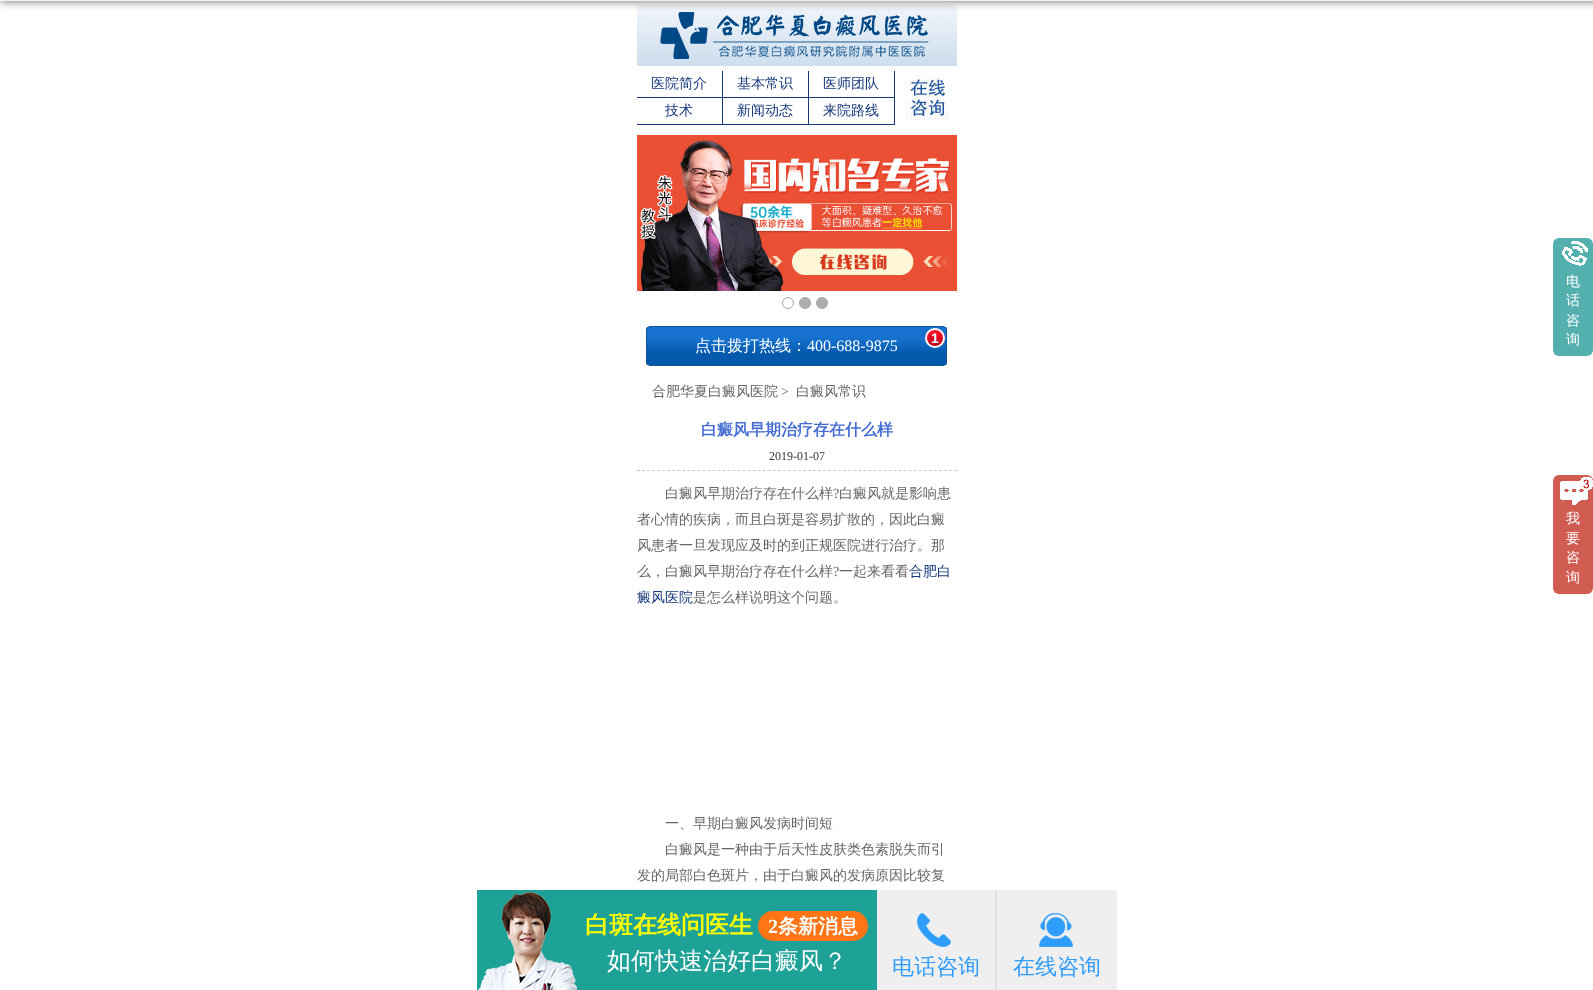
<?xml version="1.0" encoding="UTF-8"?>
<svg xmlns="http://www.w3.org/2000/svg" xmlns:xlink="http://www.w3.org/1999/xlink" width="1593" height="990">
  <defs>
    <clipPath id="clip1"><rect x="646" y="326" width="301" height="40" rx="4" /></clipPath>
    <linearGradient id="g1" gradientUnits="userSpaceOnUse" x1="797" y1="365" x2="797" y2="327"><stop offset="0.3" stop-color="#0459ad" /><stop offset="0.7" stop-color="#1672ce" /></linearGradient>
    <clipPath id="clip2"><rect x="925" y="328" width="20" height="20" rx="10" /></clipPath>
    <linearGradient id="g2" gradientUnits="userSpaceOnUse" x1="935" y1="330" x2="935" y2="346"><stop offset="0" stop-color="#fd142e" /><stop offset="1" stop-color="#bf0116" /></linearGradient>
  </defs>
  <rect width="100%" height="100%" fill="#ffffff" />
  <image x="637" y="5" width="320" height="61" xlink:href="image1.png" />
  <rect y="-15" width="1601" height="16" fill="#666666" filter="blur(5px)" />
  <rect width="1593" height="1" fill="#f1f1f1" />
  <rect x="637" y="97" width="258" height="1" fill="#15377b" />
  <rect x="722" y="71" width="1" height="26" fill="#15377b" />
  <rect x="808" y="71" width="1" height="26" fill="#15377b" />
  <rect x="894" y="71" width="1" height="26" fill="#15377b" />
  <rect x="637" y="124" width="258" height="1" fill="#15377b" />
  <rect x="722" y="98" width="1" height="26" fill="#15377b" />
  <rect x="808" y="98" width="1" height="26" fill="#15377b" />
  <rect x="894" y="98" width="1" height="26" fill="#15377b" />
  <image x="905" y="76" width="44" height="44" xlink:href="image2.png" />
  <image x="637" y="135" width="320" height="156" xlink:href="image3.png" />
  <circle cx="788" cy="303" r="5.5" fill="none" stroke="#a7a7a7" />
  <circle cx="805" cy="303" r="5.5" fill="#adadad" stroke="#a7a7a7" />
  <circle cx="822" cy="303" r="5.5" fill="#adadad" stroke="#a7a7a7" />
  <g clip-path="url(#clip1)">
    <rect x="646" y="327" width="301" height="38" fill="url(#g1)" />
  </g>
  <rect x="646.5" y="326.5" width="300" height="39" rx="3.5" fill="none" stroke="#105497" />
  <g clip-path="url(#clip2)">
    <rect x="925" y="330" width="20" height="16" fill="url(#g2)" />
  </g>
  <circle cx="935" cy="338" r="9" fill="none" stroke="#ffffff" stroke-width="2" />
  <path d="M 637 470.5 h 320" fill="none" stroke="#cccccc" stroke-dasharray="3 2.03" />
  <rect x="477" y="890" width="400" height="100" fill="#1ea297" />
  <image x="478" y="892" width="99" height="98" xlink:href="image4.png" />
  <rect x="758" y="911" width="110" height="30" rx="15" fill="#ff7415" />
  <rect x="877" y="890" width="240" height="100" fill="#efefef" />
  <rect x="995" y="890" width="2" height="100" fill="#dfdfdf" />
  <image x="914" y="908" width="40" height="39" xlink:href="image5.png" />
  <image x="1039" y="913" width="34" height="34" xlink:href="image6.png" />
  <rect x="1553" y="238" width="40" height="118" rx="6" fill="#54b0af" />
  <image x="1562" y="241" width="26" height="25" xlink:href="image7.png" />
  <rect x="1553" y="475" width="40" height="119" rx="6" fill="#d15c52" />
  <image x="1560" y="477" width="33" height="28" xlink:href="image8.png" />
  <text x="651" y="88" style="font-family: WenQuanYi Zen Hei; font-size: 14px; font-weight: 500; fill: #15377b">医院简介</text>
  <text x="737" y="88" style="font-family: WenQuanYi Zen Hei; font-size: 14px; font-weight: 500; fill: #15377b">基本常识</text>
  <text x="823" y="88" style="font-family: WenQuanYi Zen Hei; font-size: 14px; font-weight: 500; fill: #15377b">医师团队</text>
  <text x="665" y="115" style="font-family: WenQuanYi Zen Hei; font-size: 14px; font-weight: 500; fill: #15377b">技术</text>
  <text x="737" y="115" style="font-family: WenQuanYi Zen Hei; font-size: 14px; font-weight: 500; fill: #15377b">新闻动态</text>
  <text x="823" y="115" style="font-family: WenQuanYi Zen Hei; font-size: 14px; font-weight: 500; fill: #15377b">来院路线</text>
  <text x="695" y="351" style="font-family: WenQuanYi Zen Hei; font-size: 16px; font-weight: 500; fill: #ffffff">点击拨打热线：</text>
  <text x="807" y="351" style="font-family: Liberation Serif; font-size: 16px; fill: #ffffff">400-688-9875</text>
  <text x="931" y="343" style="font-family: Liberation Sans; font-size: 14px; font-weight: bold; fill: #ffffff">1</text>
  <text x="652" y="396" style="font-family: WenQuanYi Zen Hei; font-size: 14px; font-weight: 500; fill: #666666">合肥华夏白癜风医院</text>
  <text x="781" y="396" style="font-family: Liberation Serif; font-size: 14px; fill: #666666">&gt;</text>
  <text x="796" y="396" style="font-family: WenQuanYi Zen Hei; font-size: 14px; font-weight: 500; fill: #666666">白癜风常识</text>
  <text x="701" y="435" style="font-family: WenQuanYi Zen Hei; font-size: 16px; font-weight: bold; fill: #456dd4">白癜风早期治疗存在什么样</text>
  <text x="769" y="460" style="font-family: Liberation Serif; font-size: 12px; fill: #333333">2019-01-07</text>
  <text x="665" y="498" style="font-family: WenQuanYi Zen Hei; font-size: 14px; font-weight: 500; fill: #666666">白癜风早期治疗存在什么样</text>
  <text x="833" y="498" style="font-family: Liberation Serif; font-size: 14px; fill: #666666">?</text>
  <text x="839" y="498" style="font-family: WenQuanYi Zen Hei; font-size: 14px; font-weight: 500; fill: #666666">白癜风就是影响患</text>
  <text x="637" y="524" style="font-family: WenQuanYi Zen Hei; font-size: 14px; font-weight: 500; fill: #666666">者心情的疾病，而且白斑是容易扩散的，因此白癜</text>
  <text x="637" y="550" style="font-family: WenQuanYi Zen Hei; font-size: 14px; font-weight: 500; fill: #666666">风患者一旦发现应及时的到正规医院进行治疗。那</text>
  <text x="637" y="576" style="font-family: WenQuanYi Zen Hei; font-size: 14px; font-weight: 500; fill: #666666">么，白癜风早期治疗存在什么样</text>
  <text x="833" y="576" style="font-family: Liberation Serif; font-size: 14px; fill: #666666">?</text>
  <text x="839" y="576" style="font-family: WenQuanYi Zen Hei; font-size: 14px; font-weight: 500; fill: #666666">一起来看看</text>
  <text x="909" y="576" style="font-family: WenQuanYi Zen Hei; font-size: 14px; font-weight: 500; fill: #15377b">合肥白</text>
  <text x="637" y="602" style="font-family: WenQuanYi Zen Hei; font-size: 14px; font-weight: 500; fill: #15377b">癜风医院</text>
  <text x="693" y="602" style="font-family: WenQuanYi Zen Hei; font-size: 14px; font-weight: 500; fill: #666666">是怎么样说明这个问题。</text>
  <text x="665" y="828" style="font-family: WenQuanYi Zen Hei; font-size: 14px; font-weight: 500; fill: #666666">一、早期白癜风发病时间短</text>
  <text x="665" y="854" style="font-family: WenQuanYi Zen Hei; font-size: 14px; font-weight: 500; fill: #666666">白癜风是一种由于后天性皮肤类色素脱失而引</text>
  <text x="637" y="880" style="font-family: WenQuanYi Zen Hei; font-size: 14px; font-weight: 500; fill: #666666">发的局部白色斑片，由于白癜风的发病原因比较复</text>
  <text x="585" y="933" style="font-family: WenQuanYi Zen Hei; font-size: 24px; font-weight: bold; fill: #ffff00">白斑在线问医生</text>
  <text x="768" y="933" style="font-family: Liberation Serif; font-size: 20px; font-weight: bold; fill: #ffffff">2</text>
  <text x="778" y="933" style="font-family: WenQuanYi Zen Hei; font-size: 20px; font-weight: bold; fill: #ffffff">条新消息</text>
  <text x="607" y="969" style="font-family: WenQuanYi Zen Hei; font-size: 24px; font-weight: 500; fill: #ffffff">如何快速治好白癜风？</text>
  <text x="892" y="974" style="font-family: WenQuanYi Zen Hei; font-size: 22px; font-weight: 500; fill: #2f9dfc">电话咨询</text>
  <text x="1013" y="974" style="font-family: WenQuanYi Zen Hei; font-size: 22px; font-weight: 500; fill: #2f9dfc">在线咨询</text>
  <text x="1566" y="286" style="font-family: WenQuanYi Zen Hei; font-size: 14px; font-weight: 500; fill: #ffffff">电</text>
  <text x="1566" y="305" style="font-family: WenQuanYi Zen Hei; font-size: 14px; font-weight: 500; fill: #ffffff">话</text>
  <text x="1566" y="325" style="font-family: WenQuanYi Zen Hei; font-size: 14px; font-weight: 500; fill: #ffffff">咨</text>
  <text x="1566" y="344" style="font-family: WenQuanYi Zen Hei; font-size: 14px; font-weight: 500; fill: #ffffff">询</text>
  <text x="1566" y="523" style="font-family: WenQuanYi Zen Hei; font-size: 14px; font-weight: 500; fill: #ffffff">我</text>
  <text x="1566" y="543" style="font-family: WenQuanYi Zen Hei; font-size: 14px; font-weight: 500; fill: #ffffff">要</text>
  <text x="1566" y="562" style="font-family: WenQuanYi Zen Hei; font-size: 14px; font-weight: 500; fill: #ffffff">咨</text>
  <text x="1566" y="582" style="font-family: WenQuanYi Zen Hei; font-size: 14px; font-weight: 500; fill: #ffffff">询</text>
</svg>
